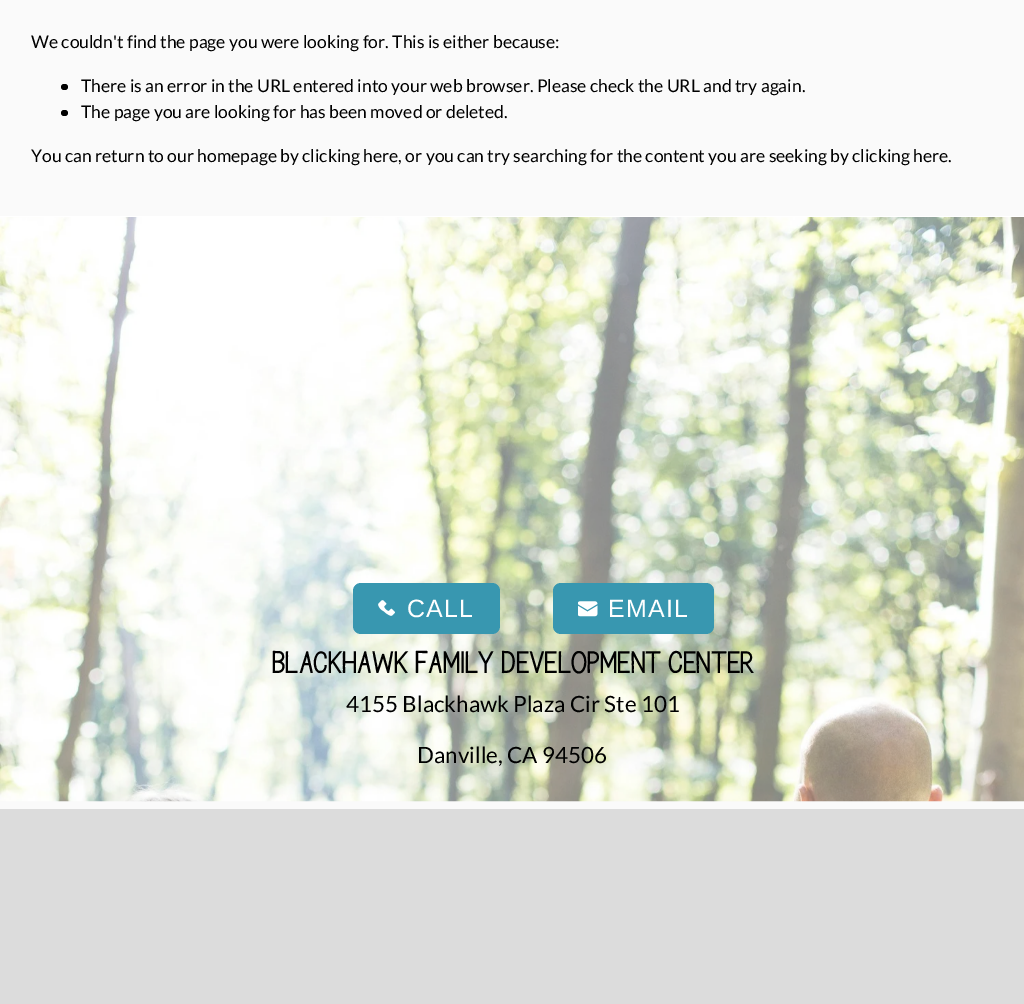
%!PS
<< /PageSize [1024 1004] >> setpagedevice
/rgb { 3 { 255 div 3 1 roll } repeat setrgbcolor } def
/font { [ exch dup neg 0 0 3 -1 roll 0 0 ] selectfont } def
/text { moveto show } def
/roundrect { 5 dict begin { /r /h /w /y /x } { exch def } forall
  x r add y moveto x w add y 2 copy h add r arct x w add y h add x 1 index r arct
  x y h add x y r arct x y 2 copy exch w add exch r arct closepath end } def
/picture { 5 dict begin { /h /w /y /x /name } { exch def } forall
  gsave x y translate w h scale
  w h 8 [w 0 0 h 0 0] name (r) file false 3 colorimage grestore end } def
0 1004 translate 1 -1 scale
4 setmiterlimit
250 250 250 rgb
0 0 1024 1004 rectfill
0 0 0 rgb
61 84 7 6 3 roundrect fill
61 110 7 6 3 roundrect fill
255 255 255 rgb
0 216 1024 1 rectfill
(img_01.rgb) 0 217 1024 585 picture
56 151 176 rgb
353 583 147 51 8 roundrect fill
(img_02.rgb) 378 600 17 16 picture
553 583 161 51 8 roundrect fill
(img_03.rgb) 578 601 20 16 picture
220 220 220 rgb
0 808 1024 196 rectfill
250 250 250 rgb
7.5 setlinewidth
2 setlinecap
-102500 510.5 moveto 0 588.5 rlineto 0 805 moveto 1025 0 rlineto stroke
/Lato-Regular 17.5 font
0 0 0 rgb
(We couldn't find the page you were looking for. This is either because:) 31 48 text
(There is an error in the URL entered into your web browser. Please check the URL and try again.) 81 92 text
(The page you are looking for has been moved or deleted.) 81 118 text
(You can return to our homepage by clicking here, or you can try searching for the content you are seeking by clicking here.) 31 162 text
/LiberationSans-Regular 25 font
255 255 255 rgb
407 617 moveto 1.25 0 (CALL) ashow
608 617 moveto 1.25 0 (EMAIL) ashow
/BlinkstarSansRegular-Regular 24.9 font
0 0 0 rgb
272 673 moveto -0.5 0 (Blackhawk Family Development Center) ashow
/Lato-Regular 22.4 font
(4155 Blackhawk Plaza Cir Ste 101) 346 712 text
(Danville, CA 94506) 417 763 text
showpage
